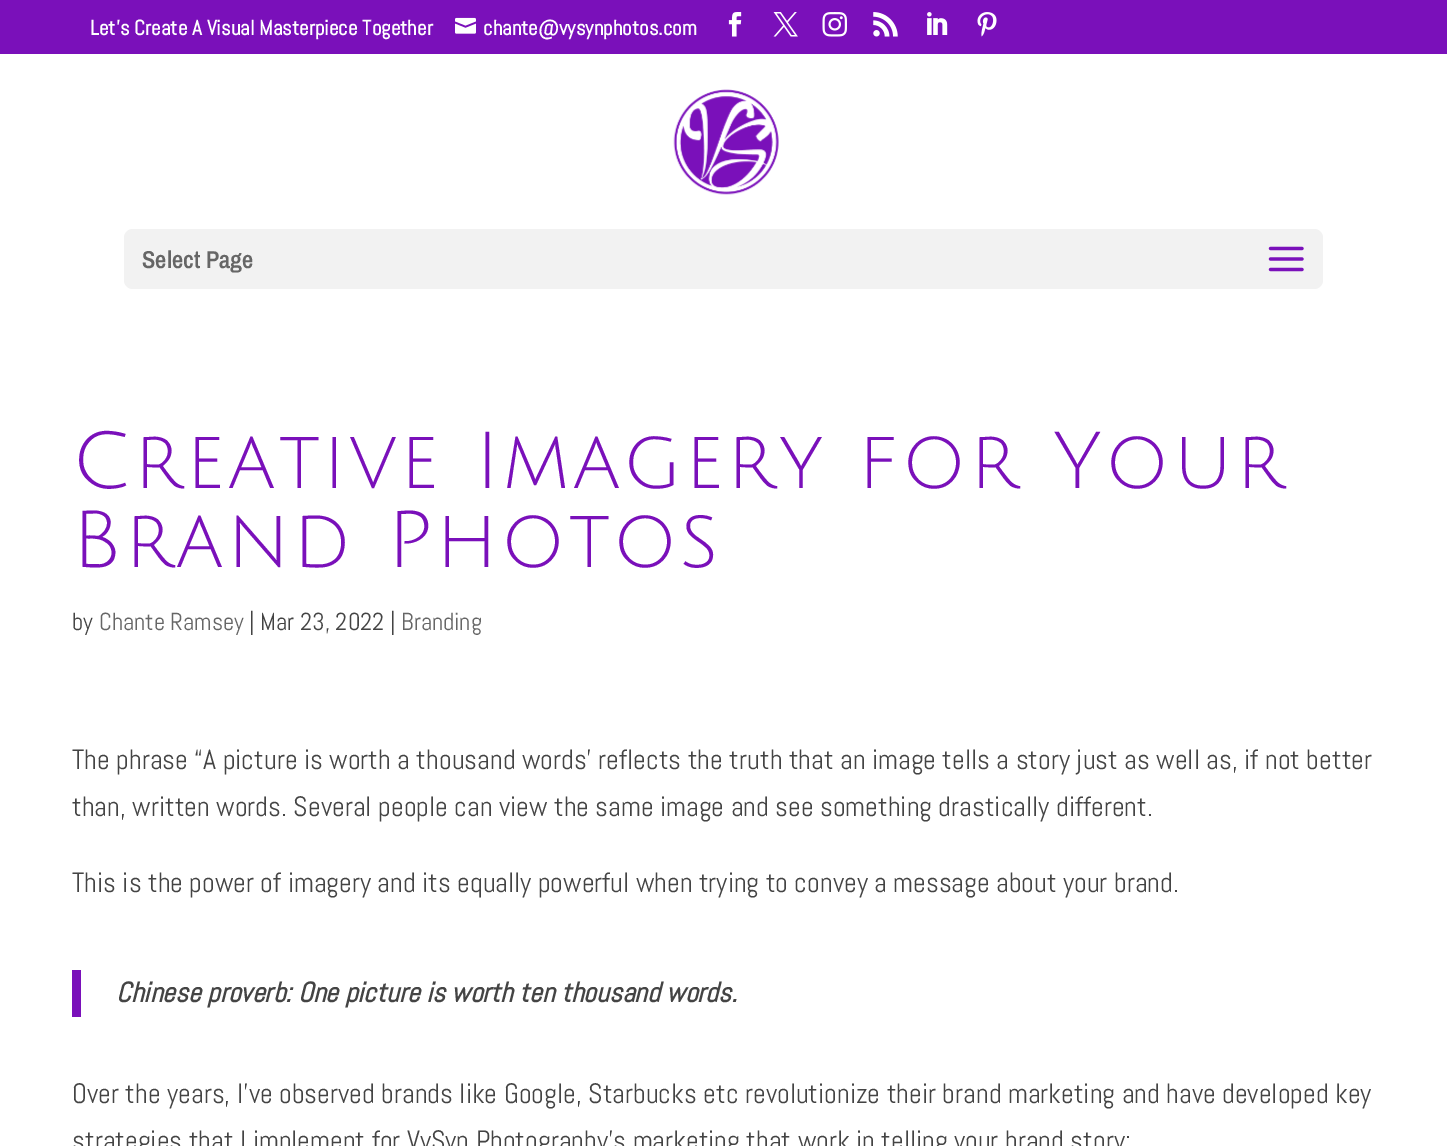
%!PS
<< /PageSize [1447 1146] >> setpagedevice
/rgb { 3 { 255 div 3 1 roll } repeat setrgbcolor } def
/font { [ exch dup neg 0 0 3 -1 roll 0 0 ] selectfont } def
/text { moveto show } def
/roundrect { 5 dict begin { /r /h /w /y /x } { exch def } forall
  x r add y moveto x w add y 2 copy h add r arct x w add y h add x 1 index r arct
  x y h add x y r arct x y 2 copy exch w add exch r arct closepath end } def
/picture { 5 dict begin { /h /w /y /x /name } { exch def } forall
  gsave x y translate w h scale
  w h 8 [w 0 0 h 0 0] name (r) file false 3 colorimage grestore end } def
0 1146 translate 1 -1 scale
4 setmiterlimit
255 255 255 rgb
0 0 1447 1146 rectfill
122 16 186 rgb
0 0 1447 54 rectfill
(img_01.rgb) 455 17 21 17 picture
(img_02.rgb) 728 12 14 25 picture
(img_03.rgb) 773 12 25 25 picture
(img_04.rgb) 822 12 25 25 picture
(img_05.rgb) 873 12 25 25 picture
(img_06.rgb) 927 12 21 23 picture
(img_07.rgb) 977 12 20 25 picture
(img_08.rgb) 673 89 106 106 picture
242 242 242 rgb
124 229 1199 60 9 roundrect fill
(img_09.rgb) 1268 246 36 26 picture
122 16 186 rgb
72 970 9 47 rectfill
/Abel-Bold 21 font
255 255 255 rgb
(Let's Create A Visual Masterpiece Together) 90 35 text
(chante@vysynphotos.com) 483 35 text
/ArchivoNarrow-SemiBold 24.5 font
102 102 102 rgb
(Select Page) 142 268 text
/JuliusSansOne-Regular 78.75 font
122 16 186 rgb
72 488 moveto 3.5 0 (Creative Imagery for Your) ashow
72 567 moveto 3.5 0 (Brand Photos) ashow
/Abel-Regular 24.5 font
68 68 68 rgb
(by) 72 630 text
102 102 102 rgb
(Chante Ramsey) 99 630 text
68 68 68 rgb
(| Mar 23, 2022 |) 249 630 text
102 102 102 rgb
(Branding) 401 630 text
/Abel-Regular 28 font
68 68 68 rgb
(The phrase “A picture is worth a thousand words’ reflects the truth that an image tells a story just as well as, if not better) 72 769 text
(than, written words. Several people can view the same image and see something drastically different.) 72 816 text
(This is the power of imagery and its equally powerful when trying to convey a message about your brand.) 72 892 text
/Abel-BoldItalic 28 font
(Chinese proverb: One picture is worth ten thousand words.) 116 1002 text
/Abel-Regular 28 font
(Over the years, I’ve observed brands like Google, Starbucks etc revolutionize their brand marketing and have developed key) 72 1103 text
(strategies that I implement for VySyn Photography’s marketing that work in telling your brand story:) 72 1150 text
showpage
